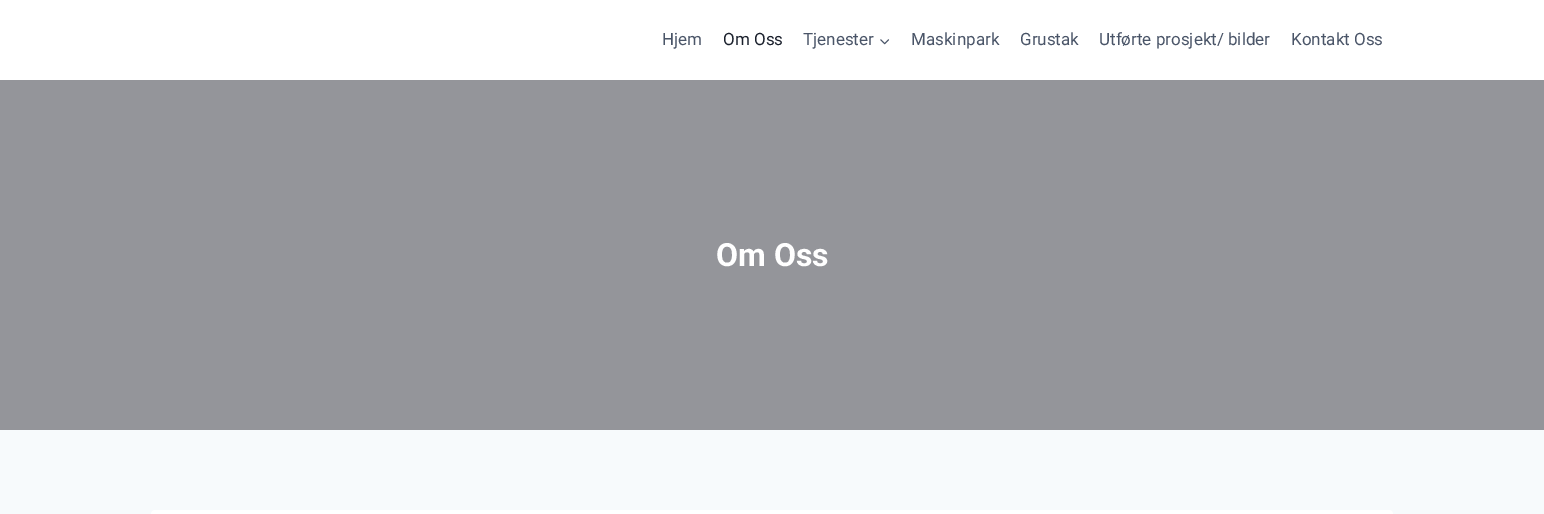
%!PS
<< /PageSize [1544 514] >> setpagedevice
/rgb { 3 { 255 div 3 1 roll } repeat setrgbcolor } def
/font { [ exch dup neg 0 0 3 -1 roll 0 0 ] selectfont } def
/text { moveto show } def
/roundrect { 5 dict begin { /r /h /w /y /x } { exch def } forall
  x r add y moveto x w add y 2 copy h add r arct x w add y h add x 1 index r arct
  x y h add x y r arct x y 2 copy exch w add exch r arct closepath end } def
/picture { 5 dict begin { /h /w /y /x /name } { exch def } forall
  gsave x y translate w h scale
  w h 8 [w 0 0 h 0 0] name (r) file false 3 colorimage grestore end } def
0 514 translate 1 -1 scale
4 setmiterlimit
247 250 252 rgb
0 0 1544 514 rectfill
255 255 255 rgb
0 0 1544 80 rectfill
(img_01.rgb) 880 39 10 6 picture
148 149 154 rgb
0 80 1544 350 rectfill
255 255 255 rgb
151 510 1242 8 4 roundrect fill
/Roboto-Regular 17 font
74 85 104 rgb
(Hjem) 662 45 text
26 32 44 rgb
(Om Oss) 723 45 text
74 85 104 rgb
(Tjenester) 803 45 text
(Maskinpark) 911 45 text
(Grustak) 1020 45 text
(Utførte prosjekt/ bilder) 1099 45 text
(Kontakt Oss) 1291 45 text
/Roboto-Bold 32 font
255 255 255 rgb
(Om Oss) 716 266 text
showpage
